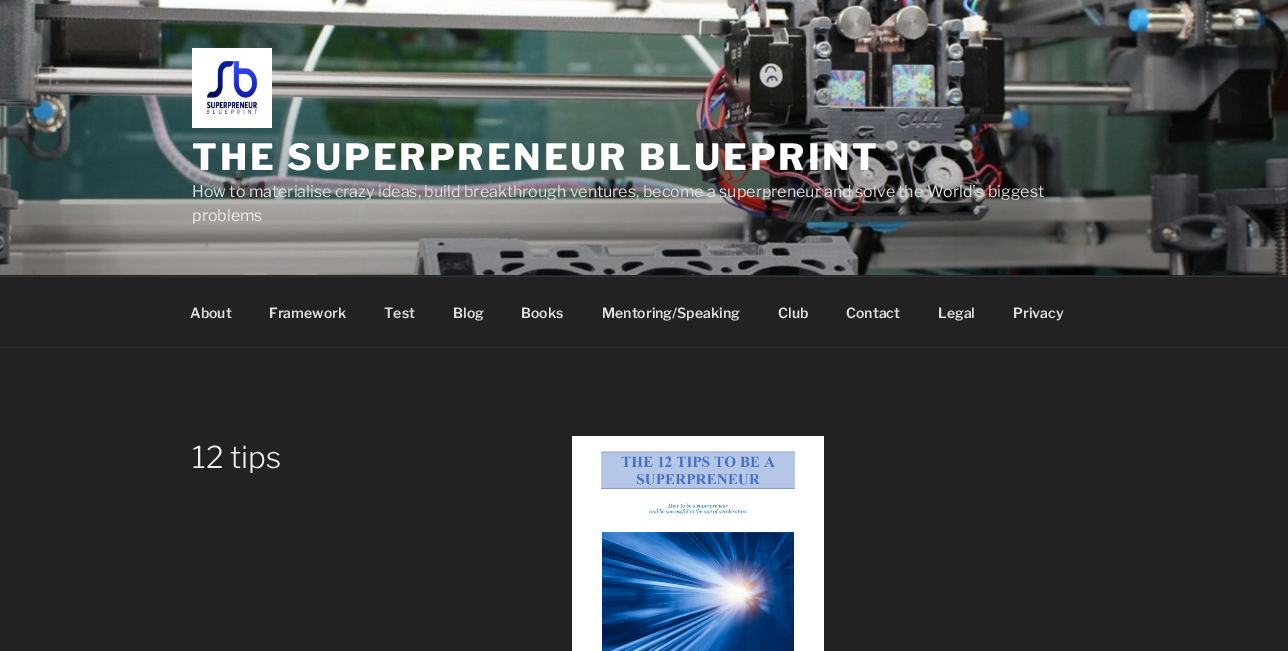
%!PS
<< /PageSize [1288 651] >> setpagedevice
/rgb { 3 { 255 div 3 1 roll } repeat setrgbcolor } def
/font { [ exch dup neg 0 0 3 -1 roll 0 0 ] selectfont } def
/text { moveto show } def
/picture { 5 dict begin { /h /w /y /x /name } { exch def } forall
  gsave x y translate w h scale
  w h 8 [w 0 0 h 0 0] name (r) file false 3 colorimage grestore end } def
0 651 translate 1 -1 scale
4 setmiterlimit
34 34 34 rgb
0 0 1288 651 rectfill
38 38 38 rgb
0 275 1288 1 rectfill
(img_01.rgb) 0 0 1288 275 picture
(img_02.rgb) 192 48 80 80 picture
51 51 51 rgb
0 276 1288 1 rectfill
0 347 1288 1 rectfill
(img_03.rgb) 572 436 252 215 picture
/LibreFranklin-ExtraBold 36 font
255 255 255 rgb
192 170 moveto 2.9 0 (THE SUPERPRENEUR BLUEPRINT) ashow
/LibreFranklin-Regular 16 font
222 222 222 rgb
(How to materialise crazy ideas, build breakthrough ventures, become a superpreneur and solve the World's biggest) 192 197 text
238 238 238 rgb
(problems) 192 221 text
/LibreFranklin-SemiBold 14 font
222 222 222 rgb
(About) 190 318 text
(Framework) 269 318 text
(Test) 384 318 text
(Blog) 453 318 text
(Books) 521 318 text
(Mentoring/Speaking) 602 318 text
(Club) 778 318 text
(Contact) 846 318 text
(Legal) 938 318 text
(Privacy) 1013 318 text
/LibreFranklin-Light 30 font
238 238 238 rgb
(12 tips) 192 468 text
showpage
